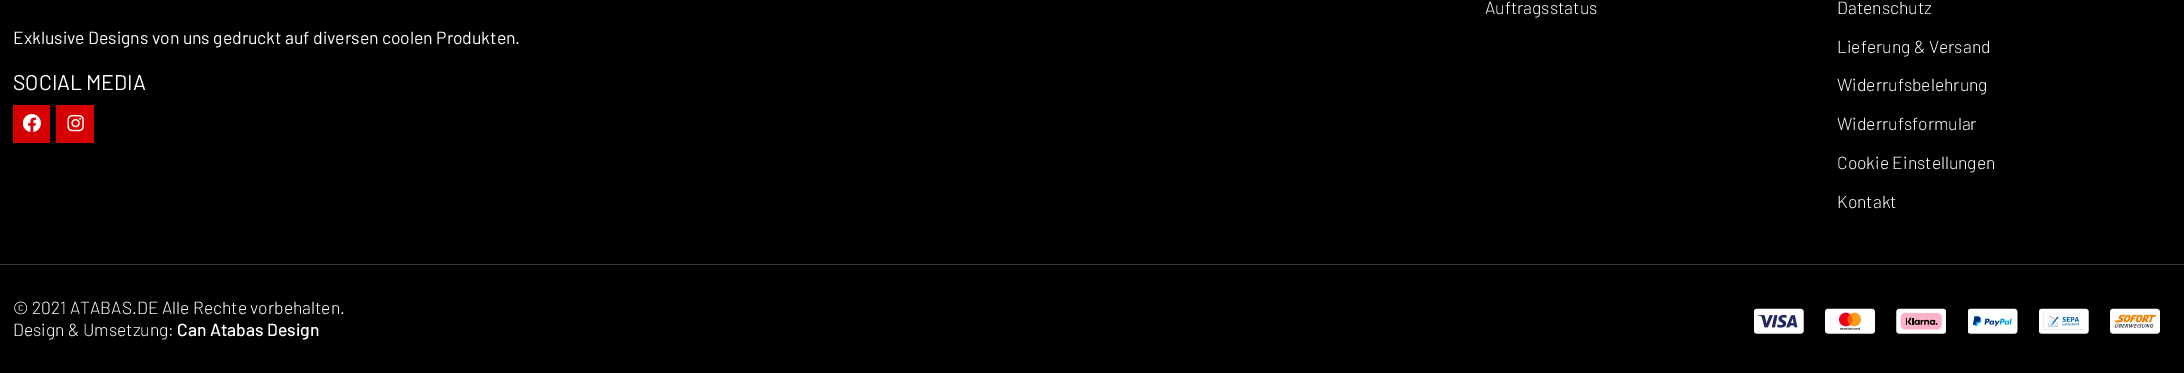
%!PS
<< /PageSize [2184 373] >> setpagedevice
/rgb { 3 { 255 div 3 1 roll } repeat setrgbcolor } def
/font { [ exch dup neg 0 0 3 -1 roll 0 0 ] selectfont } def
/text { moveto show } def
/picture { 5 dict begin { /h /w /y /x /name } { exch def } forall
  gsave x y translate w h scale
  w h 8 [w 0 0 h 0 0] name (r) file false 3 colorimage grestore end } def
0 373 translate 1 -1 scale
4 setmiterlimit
0 0 0 rgb
0 0 2184 373 rectfill
214 0 0 rgb
13 105 37 38 rectfill
(img_01.rgb) 23 114 18 18 picture
56 105 38 38 rectfill
(img_02.rgb) 67 115 17 17 picture
54 54 54 rgb
0 264 2184 1 rectfill
(img_03.rgb) 1754 308 50 26 picture
(img_04.rgb) 1825 308 50 26 picture
(img_05.rgb) 1896 308 50 26 picture
(img_06.rgb) 1968 308 50 26 picture
(img_07.rgb) 2039 308 50 26 picture
(img_08.rgb) 2110 308 50 26 picture
/Barlow-Regular 17.5 font
255 255 255 rgb
(Exklusive Designs von uns gedruckt auf diversen coolen Produkten.) 13 44 text
/Barlow-Regular 21.25 font
(SOCIAL MEDIA) 13 90 text
/Barlow-Light 17.5 font
(Auftragsstatus) 1485 14 text
(Datenschutz) 1837 14 text
(Lieferung & Versand) 1837 53 text
(Widerrufsbelehrung) 1837 91 text
(Widerrufsformular) 1837 130 text
(Cookie Einstellungen) 1837 169 text
(Kontakt) 1837 208 text
(© 2021 ATABAS.DE Alle Rechte vorbehalten.) 13 314 text
(Design & Umsetzung:) 13 336 text
/Barlow-Medium 17.5 font
(Can Atabas Design) 177 336 text
showpage
